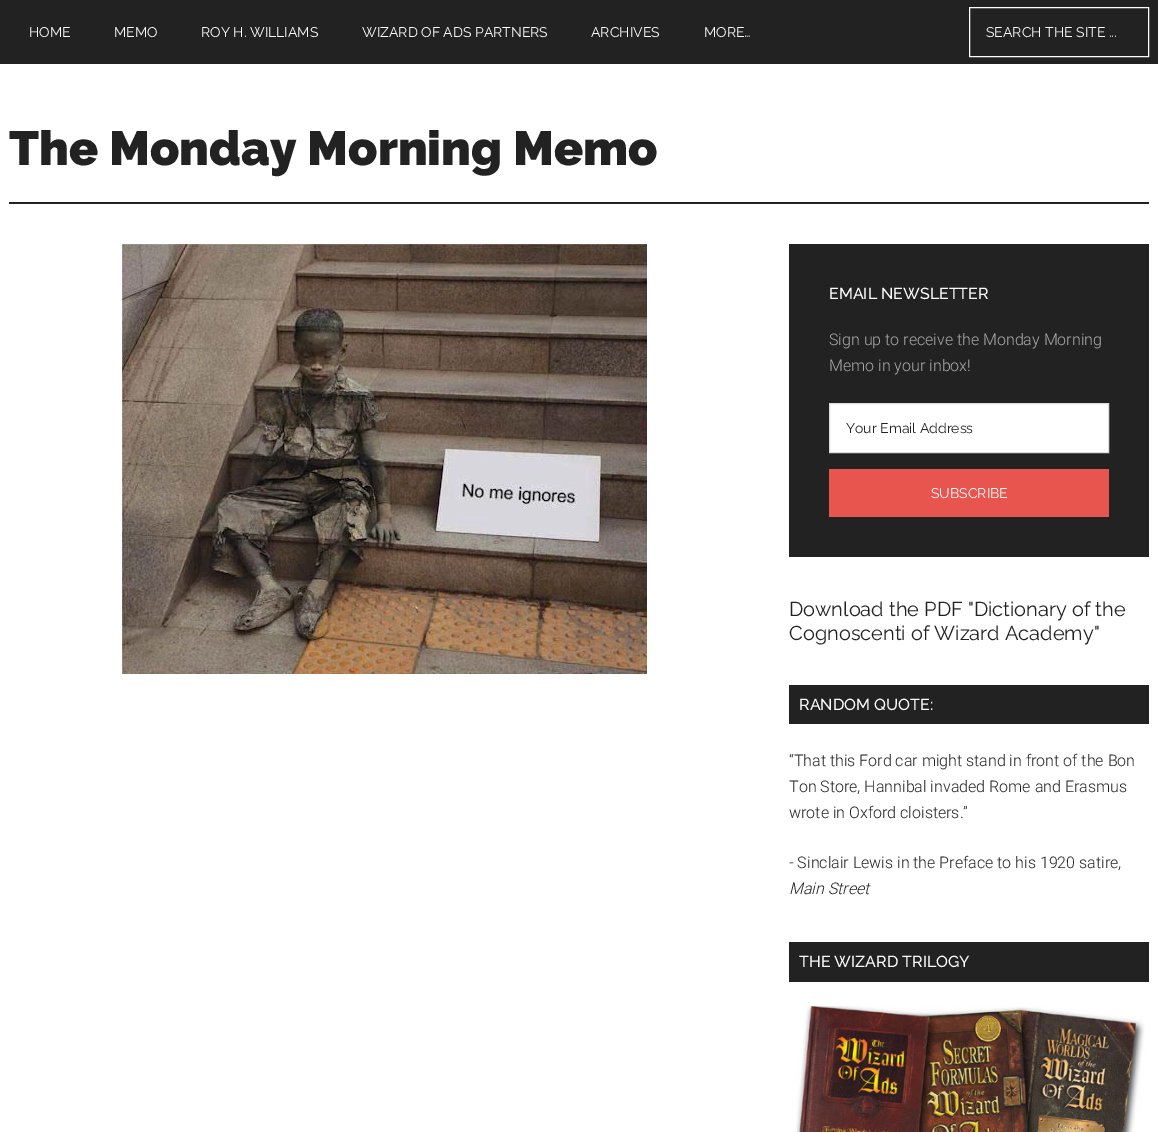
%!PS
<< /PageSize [1158 1132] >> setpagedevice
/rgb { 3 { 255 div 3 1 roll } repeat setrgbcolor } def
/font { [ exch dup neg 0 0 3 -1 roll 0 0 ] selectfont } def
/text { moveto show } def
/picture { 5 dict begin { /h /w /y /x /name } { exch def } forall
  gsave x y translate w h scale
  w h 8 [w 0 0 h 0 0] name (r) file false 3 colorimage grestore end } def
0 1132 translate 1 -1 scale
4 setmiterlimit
255 255 255 rgb
0 0 1158 1132 rectfill
34 34 34 rgb
0 0 1158 64 rectfill
255 255 255 rgb
969.5 7.5 179 49 rectstroke
34 34 34 rgb
9 202 1140 2 rectfill
(img_01.rgb) 122 244 525 430 picture
789 244 360 313 rectfill
255 255 255 rgb
829.5 403.5 moveto 279 0 rlineto 0 49 rlineto -279 0 rlineto closepath gsave fill grestore
221 221 221 rgb
stroke
232 85 78 rgb
829 469 280 48 rectfill
34 34 34 rgb
789 685 360 39 rectfill
789 942 360 40 rectfill
(img_02.rgb) 795 1006 350 126 picture
/Raleway-Regular 14 font
255 255 255 rgb
(HOME) 29 37 text
(MEMO) 114 37 text
(ROY H. WILLIAMS) 201 37 text
(WIZARD OF ADS PARTNERS) 362 37 text
(ARCHIVES) 591 37 text
(MORE…) 704 37 text
(SEARCH THE SITE ...) 986 37 text
/Raleway-Black 48 font
34 34 34 rgb
(The Monday Morning Memo) 9 165 text
/Raleway-Medium 16 font
255 255 255 rgb
(EMAIL NEWSLETTER) 829 299 text
/Roboto-Light 16 font
170 170 170 rgb
(Sign up to receive the Monday Morning) 829 345 text
(Memo in your inbox!) 829 371 text
/Raleway-Regular 14 font
34 34 34 rgb
(Your Email Address) 846 433 text
255 255 255 rgb
(SUBSCRIBE) 931 498 text
/Raleway-Regular 20 font
34 34 34 rgb
(Download the PDF "Dictionary of the) 789 616 text
(Cognoscenti of Wizard Academy") 789 640 text
/Raleway-Medium 16 font
255 255 255 rgb
(RANDOM QUOTE:) 799 710 text
/Roboto-Light 16 font
34 34 34 rgb
(“That this Ford car might stand in front of the Bon) 789 766 text
(Ton Store, Hannibal invaded Rome and Erasmus) 789 792 text
(wrote in Oxford cloisters.”) 789 818 text
(- Sinclair Lewis in the Preface to his 1920 satire,) 789 868 text
/Roboto-LightItalic 16 font
(Main Street) 789 894 text
/Raleway-Medium 16 font
255 255 255 rgb
(THE WIZARD TRILOGY) 799 967 text
showpage
